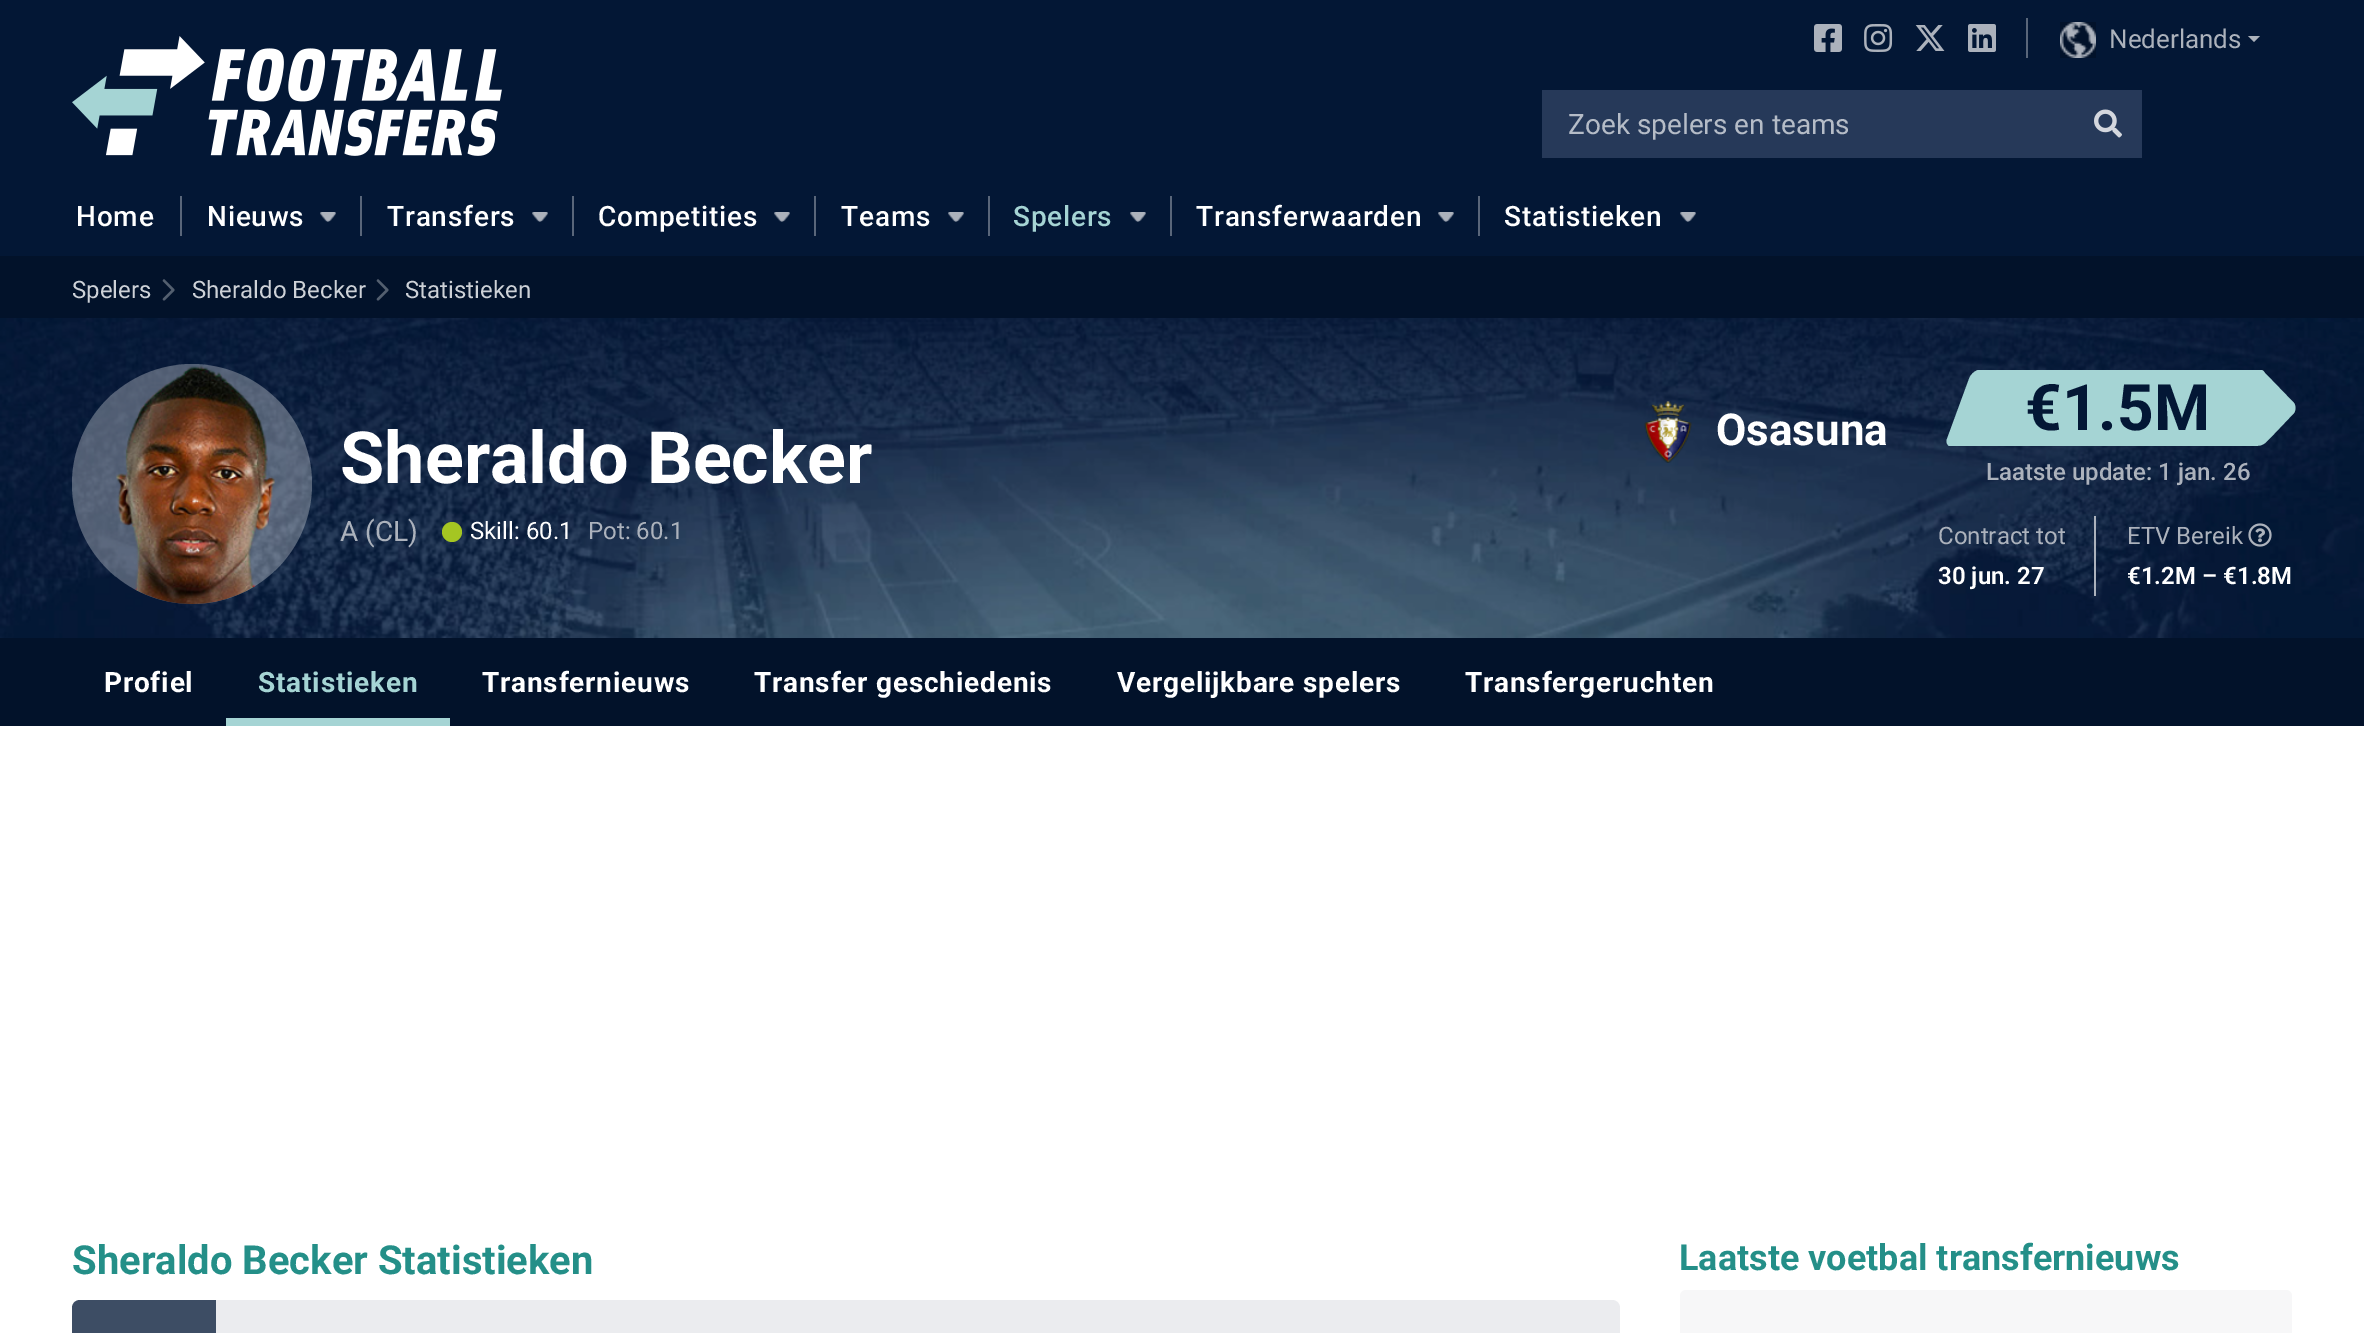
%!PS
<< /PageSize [2364 1333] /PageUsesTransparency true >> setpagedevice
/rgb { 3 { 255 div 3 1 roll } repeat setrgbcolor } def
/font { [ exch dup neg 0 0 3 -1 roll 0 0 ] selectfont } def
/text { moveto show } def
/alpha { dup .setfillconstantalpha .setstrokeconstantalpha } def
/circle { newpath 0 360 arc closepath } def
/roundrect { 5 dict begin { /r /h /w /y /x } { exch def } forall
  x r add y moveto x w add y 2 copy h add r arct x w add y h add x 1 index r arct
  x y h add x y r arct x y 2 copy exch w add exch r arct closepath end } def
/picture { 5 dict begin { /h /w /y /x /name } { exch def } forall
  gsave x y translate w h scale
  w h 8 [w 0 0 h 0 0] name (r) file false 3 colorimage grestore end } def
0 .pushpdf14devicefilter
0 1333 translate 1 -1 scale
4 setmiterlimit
255 255 255 rgb
0 0 2364 1333 rectfill
3 23 53 rgb
0 0 2364 256 rectfill
(img_01.rgb) 1814 24 28 28 picture
(img_02.rgb) 1864 24 29 28 picture
(img_03.rgb) 1915 25 30 26 picture
(img_04.rgb) 1968 24 28 28 picture
89 102 122 rgb
2026 18 2 40 rectfill
(img_05.rgb) 2060 22 36 36 picture
172 178 188 rgb
2248 36 moveto 12 0 rlineto -6 6 rlineto closepath fill
(img_06.rgb) 72 36 430 120 picture
38 57 89 rgb
1542 90 600 68 rectfill
(img_07.rgb) 2094 109 28 29 picture
89 102 122 rgb
180 196 2 40 rectfill
360 196 2 40 rectfill
(img_08.rgb) 320 212 16 10 picture
572 196 2 40 rectfill
(img_08.rgb) 532 212 16 10 picture
814 196 2 40 rectfill
(img_08.rgb) 774 212 16 10 picture
988 196 2 40 rectfill
(img_08.rgb) 948 212 16 10 picture
1170 196 2 40 rectfill
(img_08.rgb) 1130 212 16 10 picture
1478 196 2 40 rectfill
(img_08.rgb) 1438 212 16 10 picture
(img_08.rgb) 1680 212 16 10 picture
2 18 42 rgb
0 256 2364 62 rectfill
(img_09.rgb) 162 279 13 22 picture
(img_09.rgb) 376 279 13 22 picture
(img_10.rgb) 0 318 2364 320 picture
0.3 alpha
255 255 255 rgb
192 484 120 circle fill
1 alpha
(img_11.rgb) 116 365 159 239 picture
165 198 34 rgb
452 532 10 circle fill
(img_12.rgb) 1644 401 48 62 picture
165 212 212 rgb
1988 370 260 76 rectfill
gsave
1946 370 42 76 rectclip
1954 448 moveto 34 0 rlineto 0 -79 rlineto -5 0 rlineto -6 0 -12 4 -14 10 rcurveto -22 60 rlineto -2 4 2 9 7 9 rcurveto closepath fill
grestore
gsave
2246 370 50 76 rectclip
2294 413 moveto -19 20 rlineto -13 13 -10 13 -27 13 rcurveto 0 -77 rlineto 10 0 rlineto 3 0 5 1 7 4 rcurveto 29 30 rlineto 2 3 2 7 0 10 rcurveto closepath fill
grestore
172 178 188 rgb
2094 516 2 80 rectfill
(img_13.rgb) 2248 523 24 24 picture
2 18 42 rgb
0 638 2364 88 rectfill
165 212 212 rgb
226 718 224 8 rectfill
61 77 100 rgb
80 1300 moveto 136 0 rlineto 0 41 rlineto -136 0 rlineto -4.5 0 -8 -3.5 -8 -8 rcurveto 0 -25 rlineto 0 -4.5 3.5 -8 8 -8 rcurveto closepath fill
235 236 239 rgb
216 1300 1108 33 rectfill
1324 1300 moveto 288 0 rlineto 4.5 0 8 3.5 8 8 rcurveto 0 25 rlineto 0 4.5 -3.5 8 -8 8 rcurveto -288 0 rlineto closepath fill
247 247 248 rgb
1680 1290 612 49 6 roundrect fill
/Roboto-Regular 26 font
172 178 188 rgb
(Nederlands) 2109 48 text
/Roboto-Regular 28 font
181 188 199 rgb
(Zoek spelers en teams) 1568 134 text
/Roboto-Medium 28 font
255 255 255 rgb
76 226 moveto 0.8 0 (Home) ashow
207 226 moveto 0.8 0 (Nieuws) ashow
387 226 moveto 0.8 0 (Transfers) ashow
598 226 moveto 0.8 0 (Competities) ashow
841 226 moveto 0.8 0 (Teams) ashow
165 212 212 rgb
1013 226 moveto 0.8 0 (Spelers) ashow
255 255 255 rgb
1196 226 moveto 0.8 0 (Transferwaarden) ashow
1504 226 moveto 0.8 0 (Statistieken) ashow
/Roboto-Regular 24 font
205 209 215 rgb
(Spelers) 72 298 text
(Sheraldo Becker) 192 298 text
(Statistieken) 405 298 text
/Roboto-Bold 72 font
255 255 255 rgb
(Sheraldo Becker) 340 483 text
/Roboto-Regular 28 font
172 178 188 rgb
(A \(CL\)) 340 541 text
/Roboto-Regular 24 font
255 255 255 rgb
(Skill: 60.1) 470 539 text
172 178 188 rgb
(Pot: 60.1) 588 539 text
/Roboto-Bold 44 font
255 255 255 rgb
(Osasuna) 1716 445 text
/Roboto-Bold 64 font
3 23 53 rgb
(€1.5M) 2025 430 text
/Roboto-Medium 24 font
172 178 188 rgb
(Laatste update: 1 jan. 26) 1986 480 text
/Roboto-Regular 24 font
(Contract tot) 1938 544 text
/Roboto-SemiBold 24 font
255 255 255 rgb
(30 jun. 27) 1938 584 text
/Roboto-Regular 24 font
172 178 188 rgb
(ETV Bereik) 2127 544 text
/Roboto-SemiBold 24 font
255 255 255 rgb
(€1.2M – €1.8M) 2127 584 text
/Roboto-Bold 28 font
104 692 moveto 0.8 0 (Profiel) ashow
165 212 212 rgb
258 692 moveto 0.8 0 (Statistieken) ashow
255 255 255 rgb
482 692 moveto 0.8 0 (Transfernieuws) ashow
754 692 moveto 0.8 0 (Transfer geschiedenis) ashow
1117 692 moveto 0.8 0 (Vergelijkbare spelers) ashow
1465 692 moveto 0.8 0 (Transfergeruchten) ashow
/Roboto-Bold 40 font
36 143 136 rgb
(Sheraldo Becker Statistieken) 72 1274 text
/Roboto-Bold 36 font
(Laatste voetbal transfernieuws) 1679 1270 text
.poppdf14devicefilter showpage
